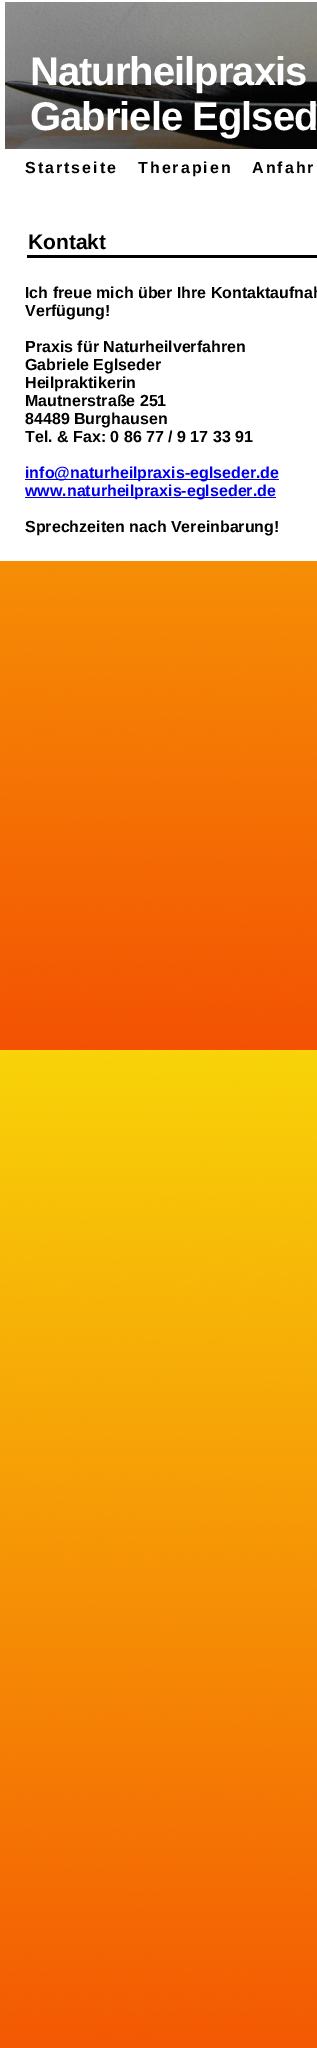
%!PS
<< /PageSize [317 2048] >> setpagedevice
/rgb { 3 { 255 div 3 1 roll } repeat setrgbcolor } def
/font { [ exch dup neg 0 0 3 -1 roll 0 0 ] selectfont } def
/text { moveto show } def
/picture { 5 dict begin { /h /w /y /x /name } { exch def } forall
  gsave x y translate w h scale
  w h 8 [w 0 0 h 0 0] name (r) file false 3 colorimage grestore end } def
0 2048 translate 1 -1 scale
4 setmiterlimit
255 255 255 rgb
0 0 317 2048 rectfill
(img_01.rgb) 0 561 317 1487 picture
(img_02.rgb) 5 2 312 147 picture
0 0 0 rgb
27 255 290 3 rectfill
0 0 238 rgb
25 479 254 1 rectfill
25 497 251 1 rectfill
/LiberationSans-Bold 40 font
255 255 255 rgb
30 85 moveto -1 0 (Naturheilpraxis) ashow
30 130 moveto -1 0 (Gabriele Eglsed) ashow
/LiberationSans-Bold 16 font
0 0 0 rgb
25 173 moveto 2 0 (Startseite) ashow
138 173 moveto 2 0 (Therapien) ashow
252 173 moveto 2 0 (Anfahr) ashow
/LiberationSans-Bold 21 font
(Kontakt) 28 249 text
/LiberationSans-Bold 16 font
(Ich freue mich über Ihre Kontaktaufnah) 25 298 text
(Verfügung!) 25 316 text
(Praxis für Naturheilverfahren) 25 352 text
(Gabriele Eglseder) 25 370 text
(Heilpraktikerin) 25 388 text
(Mautnerstraße 251) 25 406 text
(84489 Burghausen) 25 424 text
(Tel. & Fax: 0 86 77 / 9 17 33 91) 25 442 text
0 0 238 rgb
(info@naturheilpraxis-eglseder.de) 25 478 text
(www.naturheilpraxis-eglseder.de) 25 496 text
0 0 0 rgb
(Sprechzeiten nach Vereinbarung!) 25 532 text
showpage
